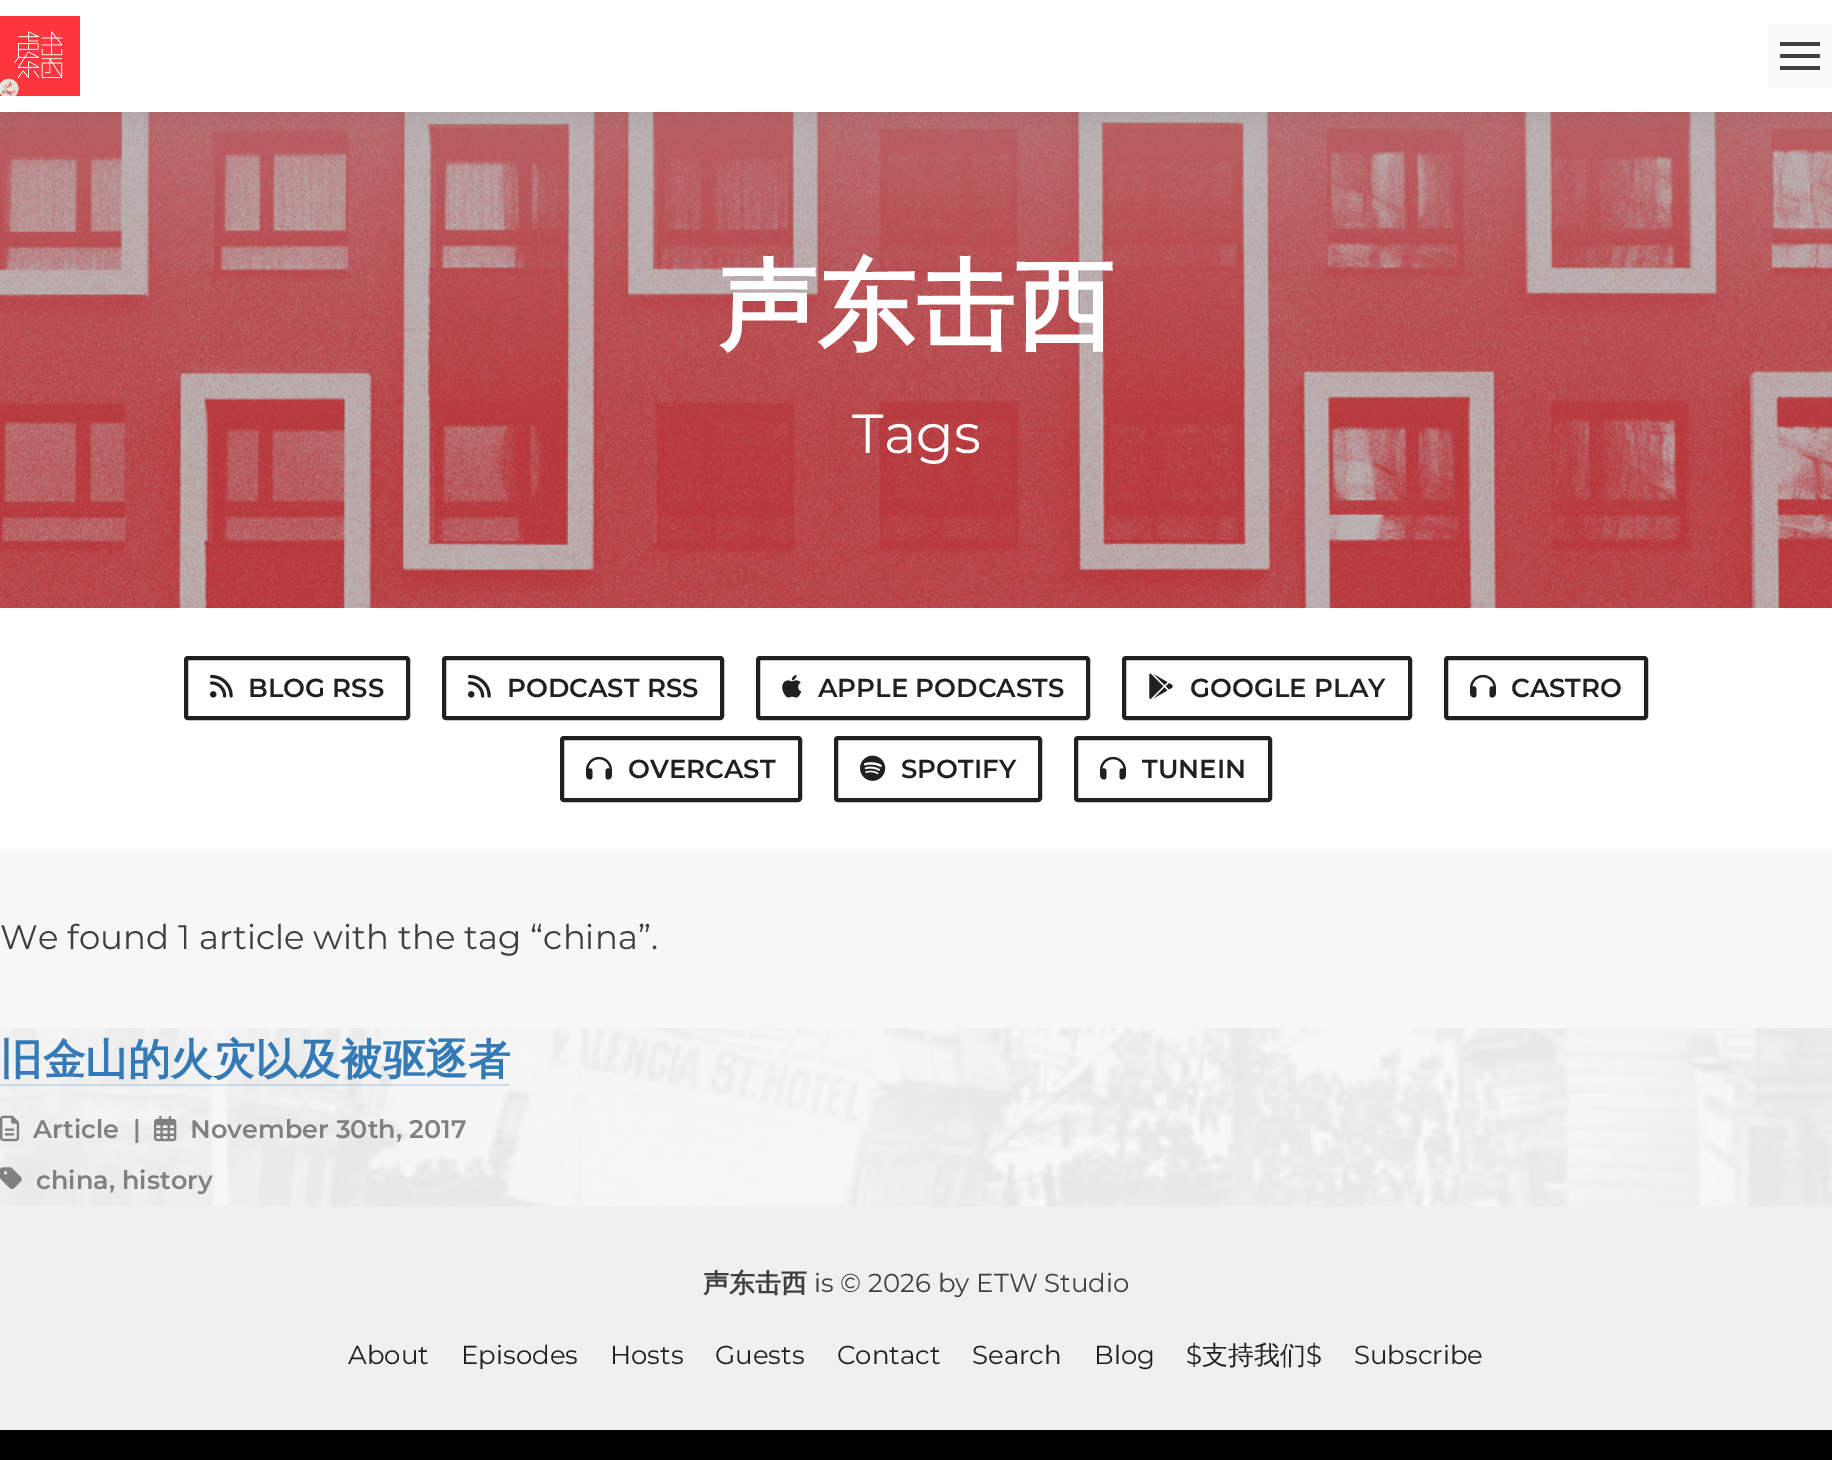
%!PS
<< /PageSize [1832 1460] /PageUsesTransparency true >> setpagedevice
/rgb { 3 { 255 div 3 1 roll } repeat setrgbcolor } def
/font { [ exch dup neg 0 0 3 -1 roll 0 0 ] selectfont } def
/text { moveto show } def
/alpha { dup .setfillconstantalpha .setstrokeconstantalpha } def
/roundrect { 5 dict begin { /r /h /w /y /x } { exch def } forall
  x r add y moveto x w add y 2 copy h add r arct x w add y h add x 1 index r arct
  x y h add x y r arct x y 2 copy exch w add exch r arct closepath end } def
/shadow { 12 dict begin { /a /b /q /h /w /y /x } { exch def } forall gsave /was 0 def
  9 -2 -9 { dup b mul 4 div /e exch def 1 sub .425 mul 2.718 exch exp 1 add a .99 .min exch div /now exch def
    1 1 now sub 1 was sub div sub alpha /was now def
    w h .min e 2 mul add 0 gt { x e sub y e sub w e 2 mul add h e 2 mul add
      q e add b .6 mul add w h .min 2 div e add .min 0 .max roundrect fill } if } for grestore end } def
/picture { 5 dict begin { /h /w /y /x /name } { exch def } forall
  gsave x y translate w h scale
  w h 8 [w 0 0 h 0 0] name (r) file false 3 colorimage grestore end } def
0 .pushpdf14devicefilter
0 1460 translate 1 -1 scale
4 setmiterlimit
247 247 247 rgb
0 0 1832 1460 rectfill
(img_02.rgb) 0 112 1832 496 picture
0 0 0 rgb
0 0 1832 112 0 16 0.1 shadow
255 255 255 rgb
0 0 1832 112 rectfill
(img_01.rgb) 0 16 80 80 picture
250 250 250 rgb
1768 24 64 64 rectfill
64 64 64 rgb
1780 42 40 4 rectfill
1780 54 40 4 rectfill
1780 66 40 4 rectfill
255 255 255 rgb
0 608 1832 242 rectfill
32 32 32 rgb
4 setlinewidth
186 658 222 60 2 roundrect stroke
(img_03.rgb) 210 674 23 24 picture
444 658 278 60 2 roundrect stroke
(img_03.rgb) 468 674 23 24 picture
758 658 330 60 2 roundrect stroke
(img_04.rgb) 782 674 20 24 picture
1124 658 286 60 2 roundrect stroke
(img_05.rgb) 1149 673 24 27 picture
1446 658 200 60 2 roundrect stroke
(img_06.rgb) 1470 674 26 24 picture
562 738 238 62 2 roundrect stroke
(img_06.rgb) 586 756 26 24 picture
836 738 204 62 2 roundrect stroke
(img_07.rgb) 860 755 26 26 picture
1076 738 194 62 2 roundrect stroke
(img_06.rgb) 1100 756 26 24 picture
250 250 250 rgb
0 1028 1832 178 rectfill
(img_08.rgb) 0 1028 1832 178 picture
0.2 alpha
51 122 183 rgb
0 1084 510 2 rectfill
1 alpha
(img_09.rgb) 0 1115 20 27 picture
(img_10.rgb) 154 1115 23 27 picture
(img_11.rgb) 0 1167 22 22 picture
240 240 240 rgb
0 1206 1832 224 rectfill
0 0 0 rgb
0 1430 1832 30 rectfill
/WenQuanYiZenHei-Bold 99 font
255 255 255 rgb
(声东击西) 718 340 text
/Montserrat-Regular 55 font
(Tags) 852 453 text
/Montserrat-SemiBold 26 font
32 32 32 rgb
(BLOG RSS) 248 697 text
(PODCAST RSS) 507 697 text
(APPLE PODCASTS) 818 697 text
(GOOGLE PLAY) 1190 697 text
(CASTRO) 1511 697 text
(OVERCAST) 628 778 text
(SPOTIFY) 901 778 text
(TUNEIN) 1142 778 text
/Montserrat-Regular 34 font
64 64 64 rgb
(We found 1 article with the tag “china”.) 0 949 text
/WenQuanYiZenHei-Bold 42.5 font
51 122 183 rgb
(旧金山的火灾以及被驱逐者) 0 1074 text
/Montserrat-SemiBold 25.5 font
128 128 128 rgb
(Article  |) 33 1138 text
(November 30th, 2017) 190 1138 text
(china, history) 36 1189 text
/WenQuanYiZenHei-Bold 26 font
64 64 64 rgb
(声东击西) 703 1292 text
/Montserrat-Regular 26 font
(is © 2026 by ETW Studio) 814 1292 text
32 32 32 rgb
(About) 348 1364 text
(Episodes) 461 1364 text
(Hosts) 610 1364 text
(Guests) 715 1364 text
(Contact) 837 1364 text
(Search) 972 1364 text
(Blog) 1094 1364 text
($) 1186 1364 text
/WenQuanYiZenHei-Medium 26 font
(支持我们) 1202 1364 text
/Montserrat-Regular 26 font
($) 1306 1364 text
(Subscribe) 1354 1364 text
.poppdf14devicefilter showpage
